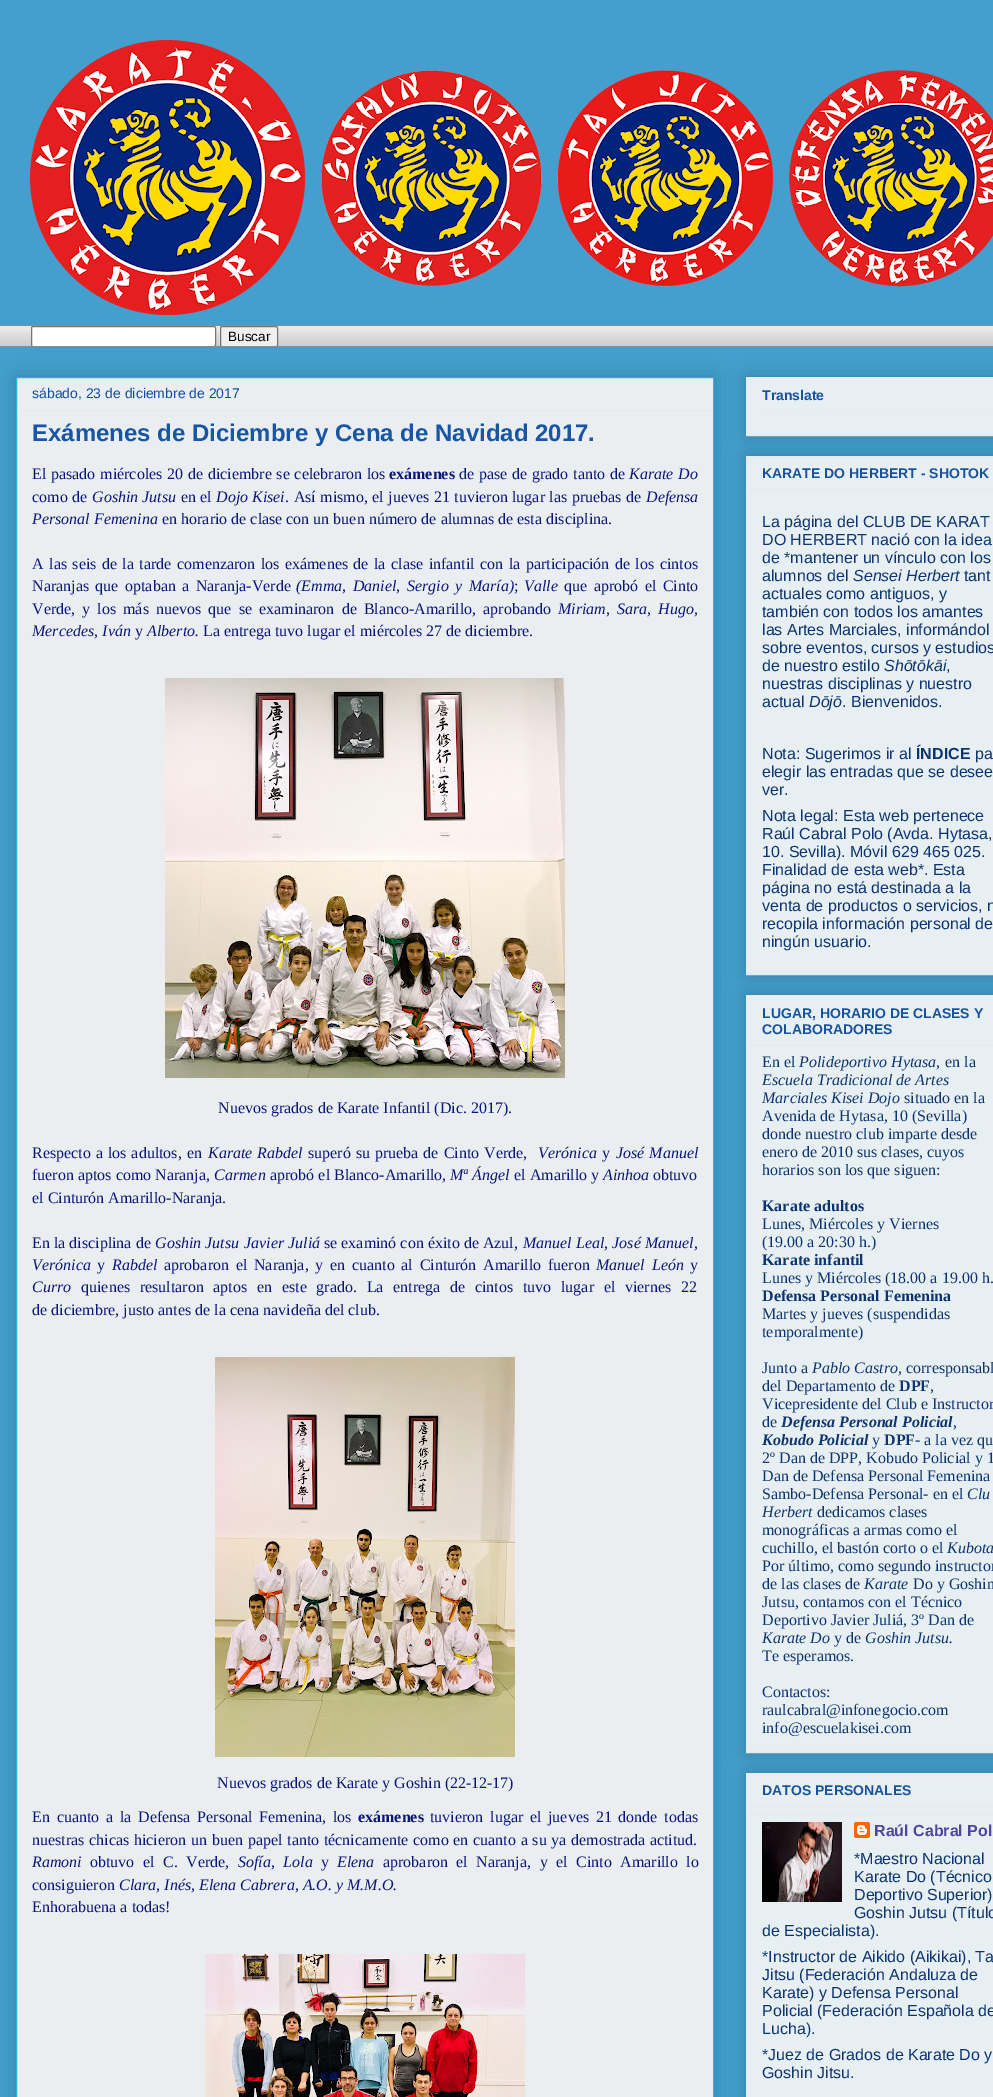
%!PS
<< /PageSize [993 2097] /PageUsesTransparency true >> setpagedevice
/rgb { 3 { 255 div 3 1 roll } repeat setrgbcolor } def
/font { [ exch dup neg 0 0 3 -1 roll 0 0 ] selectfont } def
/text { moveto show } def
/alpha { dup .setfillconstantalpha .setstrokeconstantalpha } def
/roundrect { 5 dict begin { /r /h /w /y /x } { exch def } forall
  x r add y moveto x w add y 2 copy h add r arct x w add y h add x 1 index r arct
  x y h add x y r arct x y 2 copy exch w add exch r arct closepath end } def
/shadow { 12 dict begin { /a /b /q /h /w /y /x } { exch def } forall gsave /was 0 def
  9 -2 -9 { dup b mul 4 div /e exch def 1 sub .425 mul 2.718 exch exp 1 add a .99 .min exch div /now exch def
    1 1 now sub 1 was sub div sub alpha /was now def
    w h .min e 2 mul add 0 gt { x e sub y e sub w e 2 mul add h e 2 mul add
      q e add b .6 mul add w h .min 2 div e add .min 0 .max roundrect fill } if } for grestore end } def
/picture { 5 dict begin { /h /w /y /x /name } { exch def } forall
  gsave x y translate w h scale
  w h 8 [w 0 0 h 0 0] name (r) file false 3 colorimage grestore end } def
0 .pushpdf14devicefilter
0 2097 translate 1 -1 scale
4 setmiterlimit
68 159 206 rgb
0 0 993 2097 rectfill
(img_01.rgb) 29 40 964 275 picture
233 233 233 rgb
0 326 993 20 rectfill
(img_02.rgb) 0 331 993 15 picture
140 140 140 rgb
0 325 993 1 rectfill
255 255 255 rgb
31.5 326.5 184 20 1.5 roundrect gsave fill grestore
118 118 118 rgb
stroke
239 239 239 rgb
220.5 326.5 57 20 1.5 roundrect gsave fill grestore
118 118 118 rgb
stroke
140 140 140 rgb
0 346 993 1 rectfill
0 0 0 rgb
16 377 698 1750 0 10 0.2 shadow
234 238 240 rgb
16.5 377.5 moveto 697 0 rlineto 0 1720 rlineto -697 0 rlineto closepath gsave fill grestore
39 184 214 rgb
stroke
233 233 233 rgb
17 410 696 1 rectfill
(img_03.rgb) 165 678 400 400 picture
(img_04.rgb) 215 1357 300 400 picture
(img_05.rgb) 205 1954 320 143 picture
0 0 0 rgb
746 377 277 59 0 10 0.2 shadow
232 239 242 rgb
746.5 377.5 moveto 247 0 rlineto 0 58 rlineto -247 0 rlineto closepath gsave fill grestore
233 233 233 rgb
stroke
762 411 231 1 rectfill
0 0 0 rgb
746 456 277 519 0 10 0.2 shadow
232 239 242 rgb
746.5 456.5 moveto 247 0 rlineto 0 518 rlineto -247 0 rlineto closepath gsave fill grestore
233 233 233 rgb
stroke
747 489 246 1 rectfill
0 0 0 rgb
746 995 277 758 0 10 0.2 shadow
232 239 242 rgb
746.5 995.5 moveto 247 0 rlineto 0 757 rlineto -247 0 rlineto closepath gsave fill grestore
233 233 233 rgb
stroke
747 1045 246 1 rectfill
0 0 0 rgb
746 1773 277 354 0 10 0.2 shadow
232 239 242 rgb
746.5 1773.5 moveto 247 0 rlineto 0 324 rlineto -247 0 rlineto closepath gsave fill grestore
233 233 233 rgb
stroke
747 1806 246 1 rectfill
747 1814 246 1 rectfill
(img_06.rgb) 762 1822 80 80 picture
(img_07.rgb) 854 1822 16 16 picture
/LiberationSans-Regular 13.5 font
0 0 0 rgb
(Buscar) 228 341 text
/LiberationSans-Regular 14 font
17 78 161 rgb
(sábado, 23 de diciembre de 2017) 32 398 text
/LiberationSans-Bold 24 font
24 86 165 rgb
(Exámenes de Diciembre y Cena de Navidad 2017.) 32 441 text
/LiberationSerif-Regular 16 font
10 22 120 rgb
32 479 moveto 0.75 0 32 (El pasado miércoles 20 de diciembre se celebraron los) widthshow
/LiberationSerif-Bold 16 font
(exámenes) 389 479 text
/LiberationSerif-Regular 16 font
459 479 moveto 0.75 0 32 (de pase de grado tanto de) widthshow
/LiberationSerif-Italic 16 font
629 479 moveto 1 0 32 (Karate Do) widthshow
/LiberationSerif-Regular 16 font
32 502 moveto 0.5 0 32 (como de) widthshow
/LiberationSerif-Italic 16 font
(Goshin Jutsu) 92 502 text
/LiberationSerif-Regular 16 font
(en el) 181 502 text
/LiberationSerif-Italic 16 font
(Dojo Kisei) 216 502 text
/LiberationSerif-Regular 16 font
285 502 moveto 0.5 0 32 (. Así mismo, el jueves 21 tuvieron lugar las pruebas de) widthshow
/LiberationSerif-Italic 16 font
(Defensa) 646 502 text
(Personal Femenina) 32 524 text
/LiberationSerif-Regular 16 font
(en horario de clase con un buen número de alumnas de esta disciplina.) 162 524 text
32 569 moveto 1.5 0 32 (A las seis de la tarde comenzaron los exámenes de la clase infantil con la participación de los cintos) widthshow
32 591 moveto 2.5 0 32 (Naranjas que optaban a Naranja-Verde) widthshow
/LiberationSerif-Italic 16 font
296 591 moveto 2.5 0 32 (\(Emma, Daniel, Sergio y María\)) widthshow
/LiberationSerif-Regular 16 font
(;) 514 591 text
/LiberationSerif-Italic 16 font
(Valle) 524 591 text
/LiberationSerif-Regular 16 font
564 591 moveto 2.5 0 32 (que aprobó el Cinto) widthshow
32 614 moveto 3.1 0 32 (Verde, y los más nuevos que se examinaron de Blanco-Amarillo, aprobando) widthshow
/LiberationSerif-Italic 16 font
558 614 moveto 3.1 0 32 (Miriam, Sara, Hugo,) widthshow
(Mercedes, Iván) 32 636 text
/LiberationSerif-Regular 16 font
(y) 135 636 text
/LiberationSerif-Italic 16 font
(Alberto.) 147 636 text
/LiberationSerif-Regular 16 font
(La entrega tuvo lugar el miércoles 27 de diciembre.) 203 636 text
(Nuevos grados de Karate Infantil \(Dic. 2017\).) 218 1113 text
32 1158 moveto 1 0 32 (Respecto a los adultos, en) widthshow
/LiberationSerif-Italic 16 font
(Karate) 208 1158 text
(Rabdel) 257 1158 text
/LiberationSerif-Regular 16 font
308 1158 moveto 1 0 32 (superó su prueba de Cinto Verde,) widthshow
/LiberationSerif-Italic 16 font
(Verónica) 538 1158 text
/LiberationSerif-Regular 16 font
(y) 602 1158 text
/LiberationSerif-Italic 16 font
616 1158 moveto 1 0 32 (José Manuel) widthshow
/LiberationSerif-Regular 16 font
(fueron aptos como Naranja,) 32 1180 text
/LiberationSerif-Italic 16 font
(Carmen) 214 1180 text
/LiberationSerif-Regular 16 font
(aprobó el Blanco-Amarillo,) 270 1180 text
/LiberationSerif-Italic 16 font
(Mª Ángel) 450 1180 text
/LiberationSerif-Regular 16 font
(el Amarillo y) 514 1180 text
/LiberationSerif-Italic 16 font
(Ainhoa) 603 1180 text
/LiberationSerif-Regular 16 font
(obtuvo) 653 1180 text
(el Cinturón Amarillo-Naranja.) 32 1203 text
(En la disciplina de) 32 1248 text
/LiberationSerif-Italic 16 font
(Goshin Jutsu) 155 1248 text
(Javier Juliá) 244 1248 text
/LiberationSerif-Regular 16 font
(se examinó con éxito de Azul,) 324 1248 text
/LiberationSerif-Italic 16 font
(Manuel Leal, José Manuel,) 523 1248 text
(Verónica) 32 1270 text
/LiberationSerif-Regular 16 font
(y) 97 1270 text
/LiberationSerif-Italic 16 font
(Rabdel) 112 1270 text
/LiberationSerif-Regular 16 font
164 1270 moveto 2.75 0 32 (aprobaron el Naranja, y en cuanto al Cinturón Amarillo fueron) widthshow
/LiberationSerif-Italic 16 font
596 1270 moveto 2.75 0 32 (Manuel León) widthshow
/LiberationSerif-Regular 16 font
(y) 690 1270 text
/LiberationSerif-Italic 16 font
(Curro) 32 1292 text
/LiberationSerif-Regular 16 font
81 1292 moveto 5.75 0 32 (quienes resultaron aptos en este grado. La entrega de cintos tuvo lugar el viernes 22) widthshow
(de diciembre, justo antes de la cena navideña del club.) 32 1315 text
(Nuevos grados de Karate y Goshin \(22-12-17\)) 217 1788 text
32 1822 moveto 2.75 0 32 (En cuanto a la Defensa Personal Femenina, los) widthshow
/LiberationSerif-Bold 16 font
(exámenes) 358 1822 text
/LiberationSerif-Regular 16 font
430 1822 moveto 2.75 0 32 (tuvieron lugar el jueves 21 donde todas) widthshow
32 1845 moveto 0.75 0 32 (nuestras chicas hicieron un buen papel tanto técnicamente como en cuanto a su ya demostrada actitud.) widthshow
/LiberationSerif-Italic 16 font
(Ramoni) 32 1867 text
/LiberationSerif-Regular 16 font
90 1867 moveto 4.5 0 32 (obtuvo el C. Verde,) widthshow
/LiberationSerif-Italic 16 font
238 1867 moveto 4.5 0 32 (Sofía, Lola) widthshow
/LiberationSerif-Regular 16 font
(y) 321 1867 text
/LiberationSerif-Italic 16 font
(Elena) 337 1867 text
/LiberationSerif-Regular 16 font
383 1867 moveto 4.5 0 32 (aprobaron el Naranja, y el Cinto Amarillo lo) widthshow
(consiguieron) 32 1890 text
/LiberationSerif-Italic 16 font
(Clara, Inés, Elena Cabrera, A.O. y M.M.O.) 119 1890 text
/LiberationSerif-Regular 16 font
(Enhorabuena a todas!) 32 1912 text
/LiberationSans-Bold 14 font
23 82 155 rgb
(Translate) 762 400 text
(KARATE DO HERBERT - SHOTOK) 762 478 text
/LiberationSans-Regular 16 font
12 53 112 rgb
(La página del CLUB DE KARAT) 762 527 text
(DO HERBERT nació con la idea) 762 545 text
(de *mantener un vínculo con los) 762 563 text
(alumnos del) 762 581 text
/LiberationSans-Italic 16 font
(Sensei Herbert) 853 581 text
/LiberationSans-Regular 16 font
(tant) 964 581 text
(actuales como antiguos, y) 762 599 text
(también con todos los amantes) 762 617 text
(las Artes Marciales, informándol) 762 635 text
(sobre eventos, cursos y estudios) 762 653 text
(de nuestro estilo) 762 671 text
/LiberationSans-Italic 16 font
(Shōtōkāi) 884 671 text
/LiberationSans-Regular 16 font
(,) 946 671 text
(nuestras disciplinas y nuestro) 762 689 text
(actual) 762 707 text
/LiberationSans-Italic 16 font
(Dōjō) 809 707 text
/LiberationSans-Regular 16 font
(. Bienvenidos.) 842 707 text
(Nota: Sugerimos ir al) 762 759 text
/LiberationSans-Bold 16 font
(ÍNDICE) 916 759 text
/LiberationSans-Regular 16 font
(pa) 975 759 text
(elegir las entradas que se desee) 762 777 text
(ver.) 762 795 text
(Nota legal: Esta web pertenece) 762 821 text
(Raúl Cabral Polo \(Avda. Hytasa,) 762 839 text
(10. Sevilla\). Móvil 629 465 025.) 762 857 text
(Finalidad de esta web*. Esta) 762 875 text
(página no está destinada a la) 762 893 text
(venta de productos o servicios, n) 762 911 text
(recopila información personal de) 762 929 text
(ningún usuario.) 762 947 text
/LiberationSans-Bold 14 font
23 82 155 rgb
(LUGAR, HORARIO DE CLASES Y) 762 1018 text
(COLABORADORES) 762 1034 text
/LiberationSerif-Regular 16 font
12 53 112 rgb
(En el) 762 1067 text
/LiberationSerif-Italic 16 font
(Polideportivo Hytasa,) 799 1067 text
/LiberationSerif-Regular 16 font
(en la) 945 1067 text
/LiberationSerif-Italic 16 font
(Escuela Tradicional de Artes) 762 1085 text
(Marciales Kisei Dojo) 762 1103 text
/LiberationSerif-Regular 16 font
(situado en la) 904 1103 text
(Avenida de Hytasa, 10 \(Sevilla\)) 762 1121 text
(donde nuestro club imparte desde) 762 1139 text
(enero de 2010 sus clases, cuyos) 762 1157 text
(horarios son los que siguen:) 762 1175 text
/LiberationSerif-Bold 16 font
(Karate adultos) 762 1211 text
/LiberationSerif-Regular 16 font
(Lunes, Miércoles y Viernes) 762 1229 text
(\(19.00 a 20:30 h.\)) 762 1247 text
/LiberationSerif-Bold 16 font
(Karate infantil) 762 1265 text
/LiberationSerif-Regular 16 font
(Lunes y Miércoles \(18.00 a 19.00 h.) 762 1283 text
/LiberationSerif-Bold 16 font
(Defensa Personal Femenina) 762 1301 text
/LiberationSerif-Regular 16 font
(Martes y jueves \(suspendidas) 762 1319 text
(temporalmente\)) 762 1337 text
(Junto a) 762 1373 text
/LiberationSerif-Italic 16 font
(Pablo Castro) 812 1373 text
/LiberationSerif-Regular 16 font
(, corresponsabl) 898 1373 text
(del Departamento de) 762 1391 text
/LiberationSerif-Bold 16 font
(DPF) 899 1391 text
/LiberationSerif-Regular 16 font
(,) 930 1391 text
(Vicepresidente del Club e Instructor) 762 1409 text
(de) 762 1427 text
/LiberationSerif-BoldItalic 16 font
(Defensa Personal Policial) 781 1427 text
/LiberationSerif-Regular 16 font
(,) 953 1427 text
/LiberationSerif-BoldItalic 16 font
(Kobudo Policial) 762 1445 text
/LiberationSerif-Regular 16 font
(y) 872 1445 text
/LiberationSerif-Bold 16 font
(DPF) 884 1445 text
/LiberationSerif-Regular 16 font
(- a la vez qu) 915 1445 text
(2º Dan de DPP, Kobudo Policial y 1) 762 1463 text
(Dan de Defensa Personal Femenina) 762 1481 text
(Sambo-Defensa Personal- en el) 762 1499 text
/LiberationSerif-Italic 16 font
(Clu) 967 1499 text
(Herbert) 762 1517 text
/LiberationSerif-Regular 16 font
(dedicamos clases) 817 1517 text
(monográficas a armas como el) 762 1535 text
(cuchillo, el bastón corto o el) 762 1553 text
/LiberationSerif-Italic 16 font
(Kubota) 947 1553 text
/LiberationSerif-Regular 16 font
(Por último, como segundo instructor) 762 1571 text
(de las clases de) 762 1589 text
/LiberationSerif-Italic 16 font
(Karate) 864 1589 text
/LiberationSerif-Regular 16 font
(Do y Goshin) 913 1589 text
(Jutsu, contamos con el Técnico) 762 1607 text
(Deportivo Javier Juliá, 3º Dan de) 762 1625 text
/LiberationSerif-Italic 16 font
(Karate Do) 762 1643 text
/LiberationSerif-Regular 16 font
(y de) 834 1643 text
/LiberationSerif-Italic 16 font
(Goshin Jutsu.) 865 1643 text
/LiberationSerif-Regular 16 font
(Te esperamos.) 762 1661 text
(Contactos:) 762 1697 text
(raulcabral@infonegocio.com) 762 1715 text
(info@escuelakisei.com) 762 1733 text
/LiberationSans-Bold 14 font
23 82 155 rgb
(DATOS PERSONALES) 762 1795 text
/LiberationSans-Bold 16 font
77 70 156 rgb
(Raúl Cabral Pol) 874 1836 text
/LiberationSans-Regular 16 font
12 53 112 rgb
(*Maestro Nacional) 854 1864 text
(Karate Do \(Técnico) 854 1882 text
(Deportivo Superior\)) 854 1900 text
(Goshin Jutsu \(Título) 854 1918 text
(de Especialista\).) 762 1936 text
(*Instructor de Aikido \(Aikikai\), Ta) 762 1962 text
(Jitsu \(Federación Andaluza de) 762 1980 text
(Karate\) y Defensa Personal) 762 1998 text
(Policial \(Federación Española de) 762 2016 text
(Lucha\).) 762 2034 text
(*Juez de Grados de Karate Do y) 762 2060 text
(Goshin Jitsu.) 762 2078 text
.poppdf14devicefilter showpage
